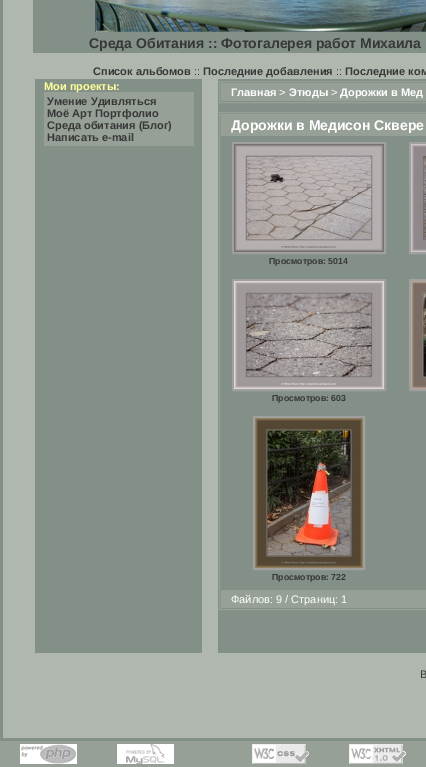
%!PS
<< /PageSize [426 767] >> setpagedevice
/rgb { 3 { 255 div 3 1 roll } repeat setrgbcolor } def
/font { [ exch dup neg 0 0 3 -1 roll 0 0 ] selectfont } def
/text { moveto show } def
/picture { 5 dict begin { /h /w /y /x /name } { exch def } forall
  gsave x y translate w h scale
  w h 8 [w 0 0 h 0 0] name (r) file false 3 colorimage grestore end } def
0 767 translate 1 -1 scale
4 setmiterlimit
150 160 150 rgb
0 0 426 767 rectfill
131 144 135 rgb
0 0 426 741 rectfill
175 183 175 rgb
3 0 423 738 rectfill
131 144 135 rgb
33 0 393 53 rectfill
(img_01.rgb) 94 0 332 33 picture
35 79 167 574 rectfill
150 160 150 rgb
44 92 150 54 rectfill
131 144 135 rgb
218 79 208 574 rectfill
150 160 150 rgb
219.5 81.5 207 21 rectstroke
221 83 205 18 rectfill
219.5 112.5 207 497 rectstroke
221 114 205 22 rectfill
160 160 160 rgb
2 setlinewidth
410 143 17 110 rectstroke
(img_02.rgb) 411 144 15 108 picture
233 143 152 110 rectstroke
(img_03.rgb) 234 144 150 108 picture
410 280 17 110 rectstroke
(img_04.rgb) 411 281 15 108 picture
233 280 152 110 rectstroke
(img_05.rgb) 234 281 150 108 picture
254 417 110 152 rectstroke
(img_06.rgb) 255 418 108 150 picture
150 160 150 rgb
221 590 205 18 rectfill
(img_07.rgb) 20 744 57 20 picture
(img_08.rgb) 117 744 57 20 picture
(img_09.rgb) 252 744 57 20 picture
(img_10.rgb) 349 744 57 20 picture
/LiberationSans-Bold 14 font
56 56 56 rgb
(Среда Обитания :: Фотогалерея работ Михаила) 89 48 text
/LiberationSans-Bold 11 font
(Список альбомов) 93 75 text
/LiberationSans-Regular 11 font
(::) 194 75 text
/LiberationSans-Bold 11 font
(Последние добавления) 203 75 text
/LiberationSans-Regular 11 font
(::) 336 75 text
/LiberationSans-Bold 11 font
(Последние ком) 345 75 text
255 255 153 rgb
(Мои проекты:) 44 90 text
56 56 56 rgb
(Умение Удивляться) 47 105 text
(Моё Арт Портфолио) 47 117 text
(Среда обитания \(Блог\)) 47 129 text
(Написать e-mail) 47 141 text
255 255 255 rgb
(Главная) 231 96 text
/LiberationSans-Regular 11 font
(>) 279 96 text
/LiberationSans-Bold 11 font
(Этюды) 289 96 text
/LiberationSans-Regular 11 font
(>) 331 96 text
/LiberationSans-Bold 11 font
(Дорожки в Мед) 340 96 text
/LiberationSans-Bold 14 font
(Дорожки в Медисон Сквере) 231 130 text
/LiberationSans-Bold 8.75 font
56 56 56 rgb
(Просмотров: 5014) 269 264 text
(Просмотров: 603) 272 401 text
(Просмотров: 722) 272 580 text
/LiberationSans-Regular 11 font
255 255 255 rgb
(Файлов: 9 / Страниц: 1) 231 603 text
56 56 56 rgb
(В) 420 678 text
showpage
